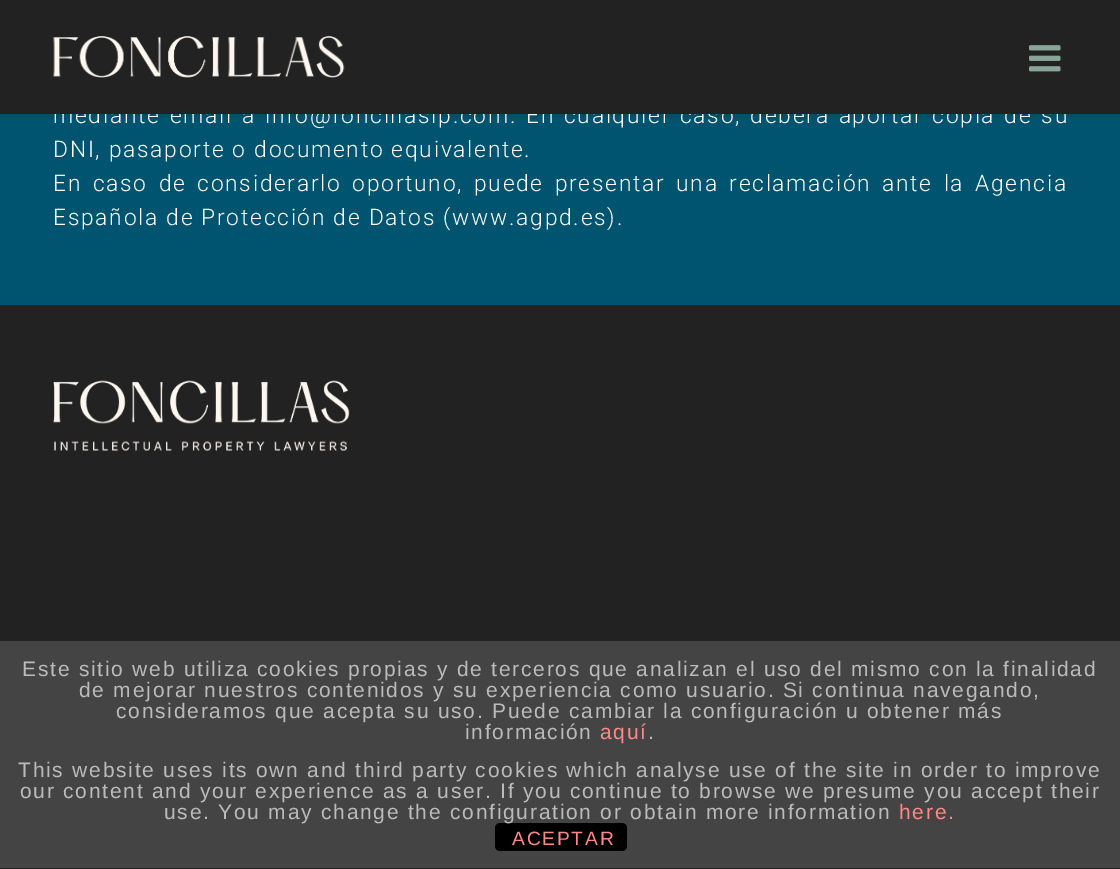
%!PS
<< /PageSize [1120 869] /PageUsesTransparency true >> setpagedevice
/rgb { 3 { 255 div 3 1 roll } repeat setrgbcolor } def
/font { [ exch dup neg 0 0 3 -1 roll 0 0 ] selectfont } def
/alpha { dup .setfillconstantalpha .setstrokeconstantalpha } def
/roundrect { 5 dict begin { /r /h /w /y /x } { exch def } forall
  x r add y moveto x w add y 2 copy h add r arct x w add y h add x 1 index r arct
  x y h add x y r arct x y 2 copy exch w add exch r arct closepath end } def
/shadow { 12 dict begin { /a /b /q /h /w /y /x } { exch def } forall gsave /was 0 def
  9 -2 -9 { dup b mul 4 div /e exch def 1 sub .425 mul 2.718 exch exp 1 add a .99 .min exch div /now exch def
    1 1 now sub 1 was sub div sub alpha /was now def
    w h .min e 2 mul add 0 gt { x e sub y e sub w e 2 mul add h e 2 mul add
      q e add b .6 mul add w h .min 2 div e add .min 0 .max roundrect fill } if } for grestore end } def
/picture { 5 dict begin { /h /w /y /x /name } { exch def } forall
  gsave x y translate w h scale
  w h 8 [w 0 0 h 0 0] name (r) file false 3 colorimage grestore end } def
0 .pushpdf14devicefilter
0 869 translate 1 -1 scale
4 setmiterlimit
0 84 112 rgb
0 0 1120 869 rectfill
0 0 0 rgb
0 2 1120 114 0 2.5 0.12 shadow
34 34 34 rgb
0 305 1120 336 rectfill
(img_03.rgb) 53 380 297 71 picture
68 68 68 rgb
0 641 1120 227 rectfill
34 34 34 rgb
0 868 1120 1 rectfill
0 0 0 rgb
495 823 132 28 5 roundrect fill
/Roboto-Light 22.75 font
255 255 255 rgb
53 123 moveto 1.75 0 32 1.75 0 (mediante email a info@foncillasip.com. En cualquier caso, deberá aportar copia de su) awidthshow
34 34 34 rgb
0 0 1120 114 rectfill
(img_02.rgb) 1029 45 32 27 picture
(img_01.rgb) 53 36 292 42 picture
255 255 255 rgb
53 157 moveto 1.75 0 (DNI, pasaporte o documento equivalente.) ashow
53 191 moveto 3.4 0 32 1.75 0 (En caso de considerarlo oportuno, puede presentar una reclamación ante la Agencia) awidthshow
53 225 moveto 1.75 0 (Española de Protección de Datos \(www.agpd.es\).) ashow
/LiberationSans-Regular 21 font
187 187 187 rgb
22 676 moveto 1.75 0 (Este sitio web utiliza cookies propias y de terceros que analizan el uso del mismo con la finalidad) ashow
79 697 moveto 1.75 0 (de mejorar nuestros contenidos y su experiencia como usuario. Si continua navegando,) ashow
116 718 moveto 1.75 0 (consideramos que acepta su uso. Puede cambiar la configuración u obtener más) ashow
465 739 moveto 1.75 0 (información) ashow
255 136 136 rgb
600 739 moveto 1.75 0 (aquí) ashow
187 187 187 rgb
648 739 moveto 1.75 0 (.) ashow
18 777 moveto 1.75 0 (This website uses its own and third party cookies which analyse use of the site in order to improve) ashow
20 798 moveto 1.75 0 (our content and your experience as a user. If you continue to browse we presume you accept their) ashow
164 819 moveto 1.75 0 (use. You may change the configuration or obtain more information) ashow
255 136 136 rgb
899 819 moveto 1.75 0 (here.) ashow
/LiberationSans-Regular 19.25 font
512 845 moveto 1.75 0 (ACEPTAR) ashow
.poppdf14devicefilter showpage
